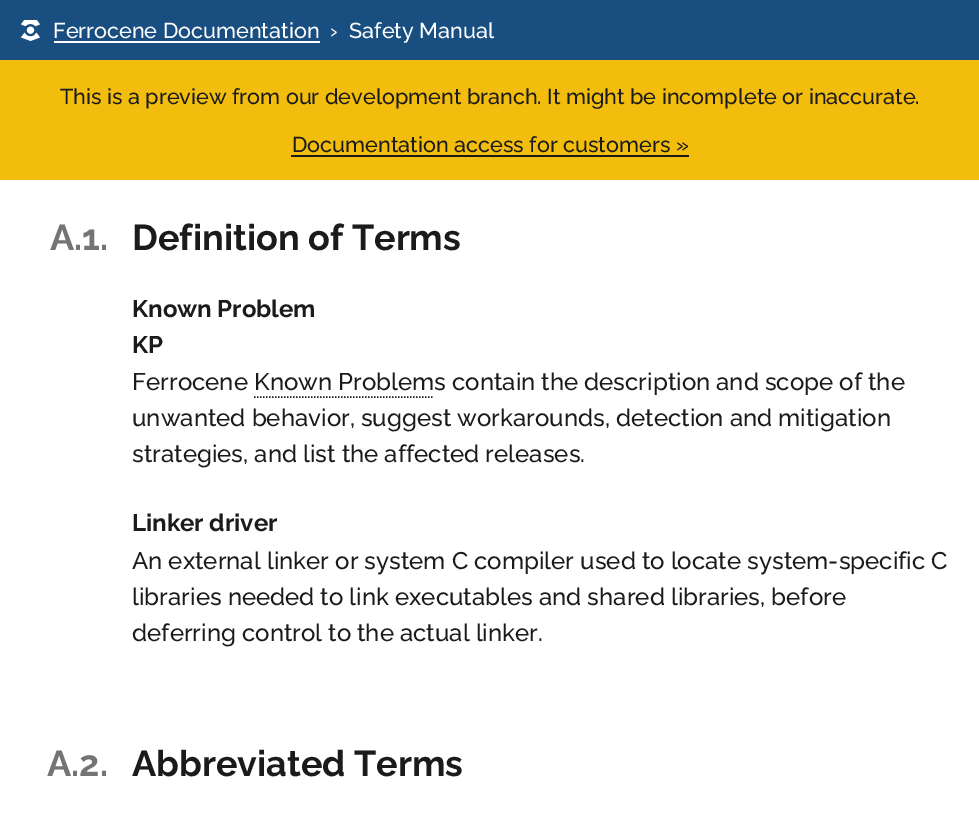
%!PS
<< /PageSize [979 838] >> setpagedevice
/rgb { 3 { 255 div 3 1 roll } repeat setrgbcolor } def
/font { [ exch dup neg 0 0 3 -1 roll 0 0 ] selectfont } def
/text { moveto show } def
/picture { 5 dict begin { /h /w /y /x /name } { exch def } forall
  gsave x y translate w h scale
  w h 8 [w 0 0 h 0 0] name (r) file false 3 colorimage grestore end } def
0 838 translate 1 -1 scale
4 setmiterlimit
255 255 255 rgb
0 0 979 838 rectfill
25 78 128 rgb
0 0 979 60 rectfill
(img_01.rgb) 21 20 19 21 picture
255 255 255 rgb
54 41 266 2 rectfill
242 189 13 rgb
0 60 979 120 rectfill
27 27 27 rgb
291 155 398 2 rectfill
1.5 setlinewidth
[1.5 1.5] 0 setdash
254 397 moveto 180 0 rlineto stroke
/Raleway-Medium 21.6 font
255 255 255 rgb
(Ferrocene Documentation) 53 38 text
(›) 330 38 text
(Safety Manual) 349 38 text
27 27 27 rgb
(This is a preview from our development branch. It might be incomplete or inaccurate.) 60 104 text
(Documentation access for customers ») 292 152 text
/Raleway-Bold 36 font
116 116 116 rgb
(A.1.) 50 250 text
27 27 27 rgb
(Definition of Terms) 132 250 text
/Raleway-Bold 24 font
(Known Problem) 132 317 text
(KP) 132 353 text
/Raleway-Medium 24 font
(Ferrocene Known Problems contain the description and scope of the) 132 390 text
(unwanted behavior, suggest workarounds, detection and mitigation) 132 426 text
(strategies, and list the affected releases.) 132 462 text
/Raleway-Bold 24 font
(Linker driver) 132 531 text
/Raleway-Medium 24 font
(An external linker or system C compiler used to locate system-specific C) 132 569 text
(libraries needed to link executables and shared libraries, before) 132 605 text
(deferring control to the actual linker.) 132 641 text
/Raleway-Bold 36 font
116 116 116 rgb
(A.2.) 47 776 text
27 27 27 rgb
(Abbreviated Terms) 132 776 text
showpage
